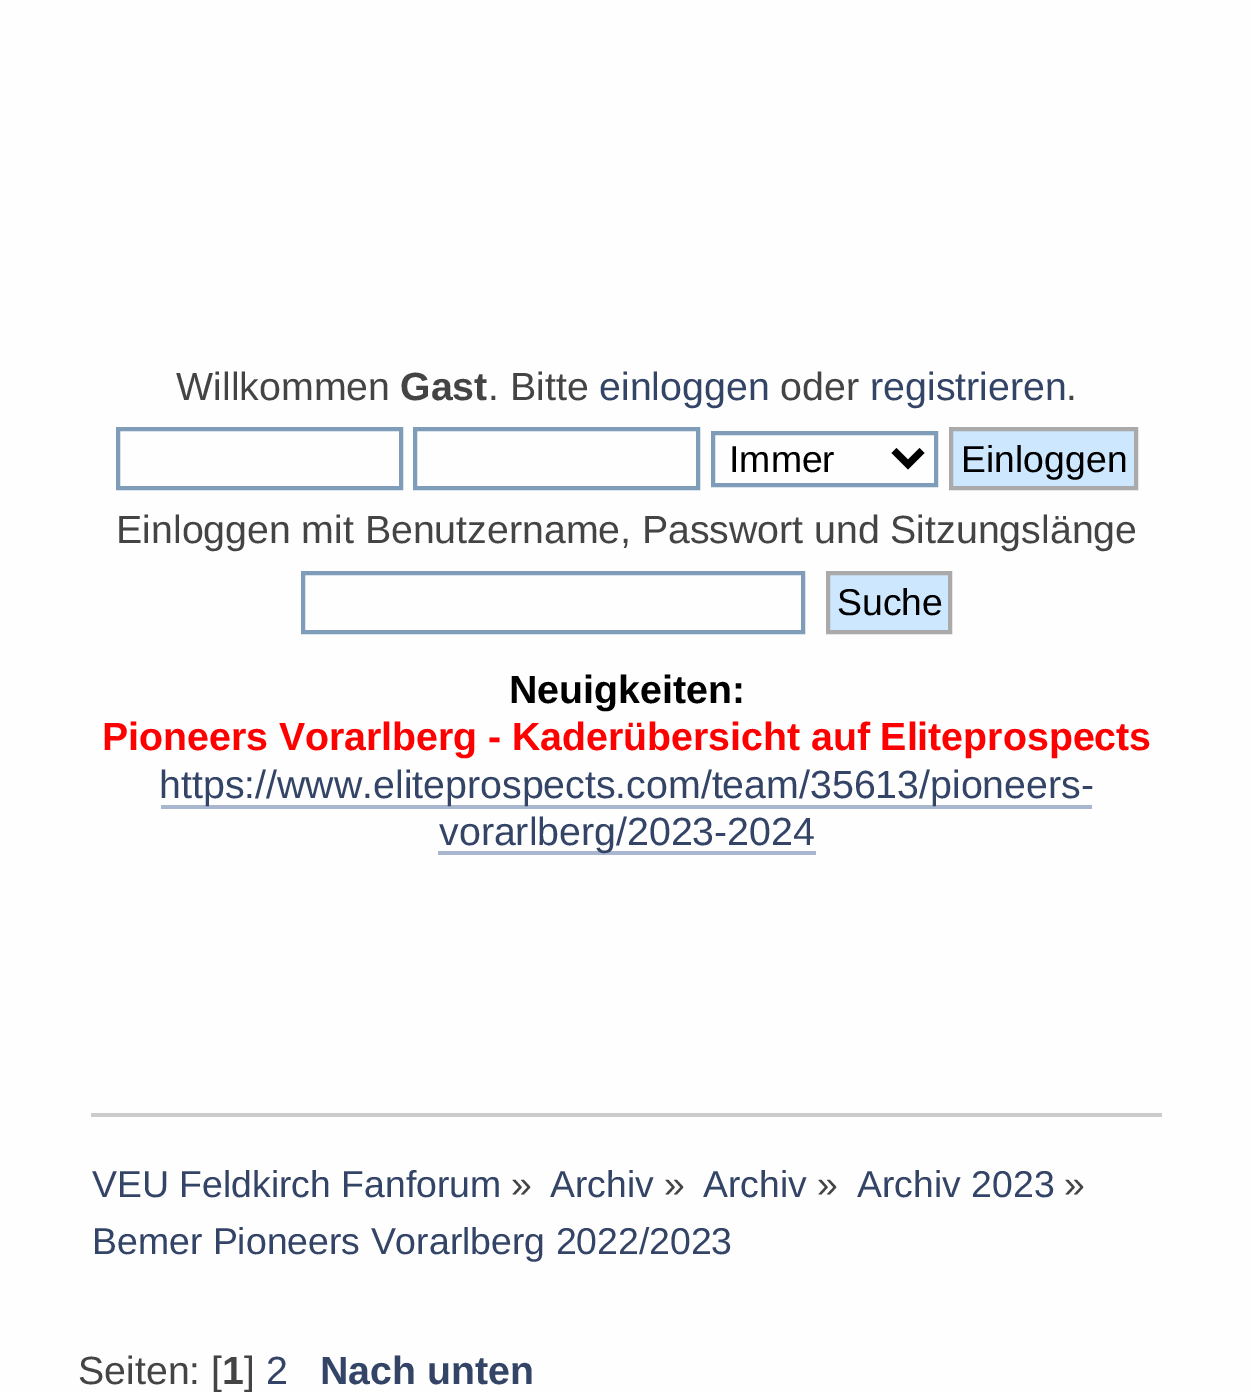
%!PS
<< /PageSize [1251 1392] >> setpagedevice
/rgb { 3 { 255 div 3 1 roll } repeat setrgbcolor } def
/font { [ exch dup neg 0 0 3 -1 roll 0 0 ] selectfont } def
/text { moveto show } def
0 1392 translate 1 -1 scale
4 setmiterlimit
254 254 254 rgb
0 0 1251 1392 rectfill
127 157 185 rgb
4 setlinewidth
118 429 283 59 rectstroke
415 429 283 59 rectstroke
713 433 223 52 rectstroke
0 0 0 rgb
7 setlinewidth
894 450.5 moveto 14 14 rlineto 14 -14 rlineto stroke
205 231 255 rgb
951 429 moveto 185 0 rlineto 0 59 rlineto -185 0 rlineto closepath gsave fill grestore
170 170 170 rgb
4 setlinewidth
stroke
127 157 185 rgb
303 573 500 59 rectstroke
205 231 255 rgb
828 573 moveto 122 0 rlineto 0 59 rlineto -122 0 rlineto closepath gsave fill grestore
170 170 170 rgb
stroke
168 182 207 rgb
161 805 931 4 rectfill
438 851 378 4 rectfill
204 204 204 rgb
91 1113 1071 4 rectfill
/LiberationSans-Regular 39.3 font
68 68 68 rgb
(Willkommen) 176 400 text
/LiberationSans-Bold 39.3 font
(Gast) 400 400 text
/LiberationSans-Regular 39.3 font
(. Bitte) 488 400 text
51 68 102 rgb
(einloggen) 599 400 text
68 68 68 rgb
(oder) 780 400 text
51 68 102 rgb
(registrieren) 870 400 text
68 68 68 rgb
(.) 1066 400 text
/LiberationSans-Regular 37.4 font
0 0 0 rgb
(Immer) 729 472 text
(Einloggen) 961 472 text
/LiberationSans-Regular 39.3 font
68 68 68 rgb
116 543 moveto -0.25 0 32 (Einloggen mit Benutzername, Passwort und Sitzungslänge) widthshow
/LiberationSans-Regular 37.4 font
0 0 0 rgb
(Suche) 837 615 text
/LiberationSans-Bold 39.3 font
(Neuigkeiten:) 509 703 text
255 0 0 rgb
102 750 moveto -0.25 0 32 (Pioneers Vorarlberg - Kaderübersicht auf Eliteprospects) widthshow
/LiberationSans-Regular 39.3 font
51 68 102 rgb
(https://www.eliteprospects.com/team/35613/pioneers-) 159 798 text
(vorarlberg/2023-2024) 439 845 text
/LiberationSans-Regular 37.4 font
(VEU Feldkirch Fanforum) 92 1197 text
68 68 68 rgb
(») 511 1197 text
51 68 102 rgb
(Archiv) 550 1197 text
68 68 68 rgb
(») 664 1197 text
51 68 102 rgb
(Archiv) 703 1197 text
68 68 68 rgb
(») 817 1197 text
51 68 102 rgb
(Archiv 2023) 857 1197 text
68 68 68 rgb
(») 1064 1197 text
51 68 102 rgb
(Bemer Pioneers Vorarlberg 2022/2023) 92 1254 text
/LiberationSans-Regular 39.3 font
68 68 68 rgb
(Seiten: [) 78 1384 text
/LiberationSans-Bold 39.3 font
(1) 222 1384 text
/LiberationSans-Regular 39.3 font
(]) 244 1384 text
51 68 102 rgb
(2) 266 1384 text
/LiberationSans-Bold 39.3 font
(Nach unten) 320 1384 text
showpage
